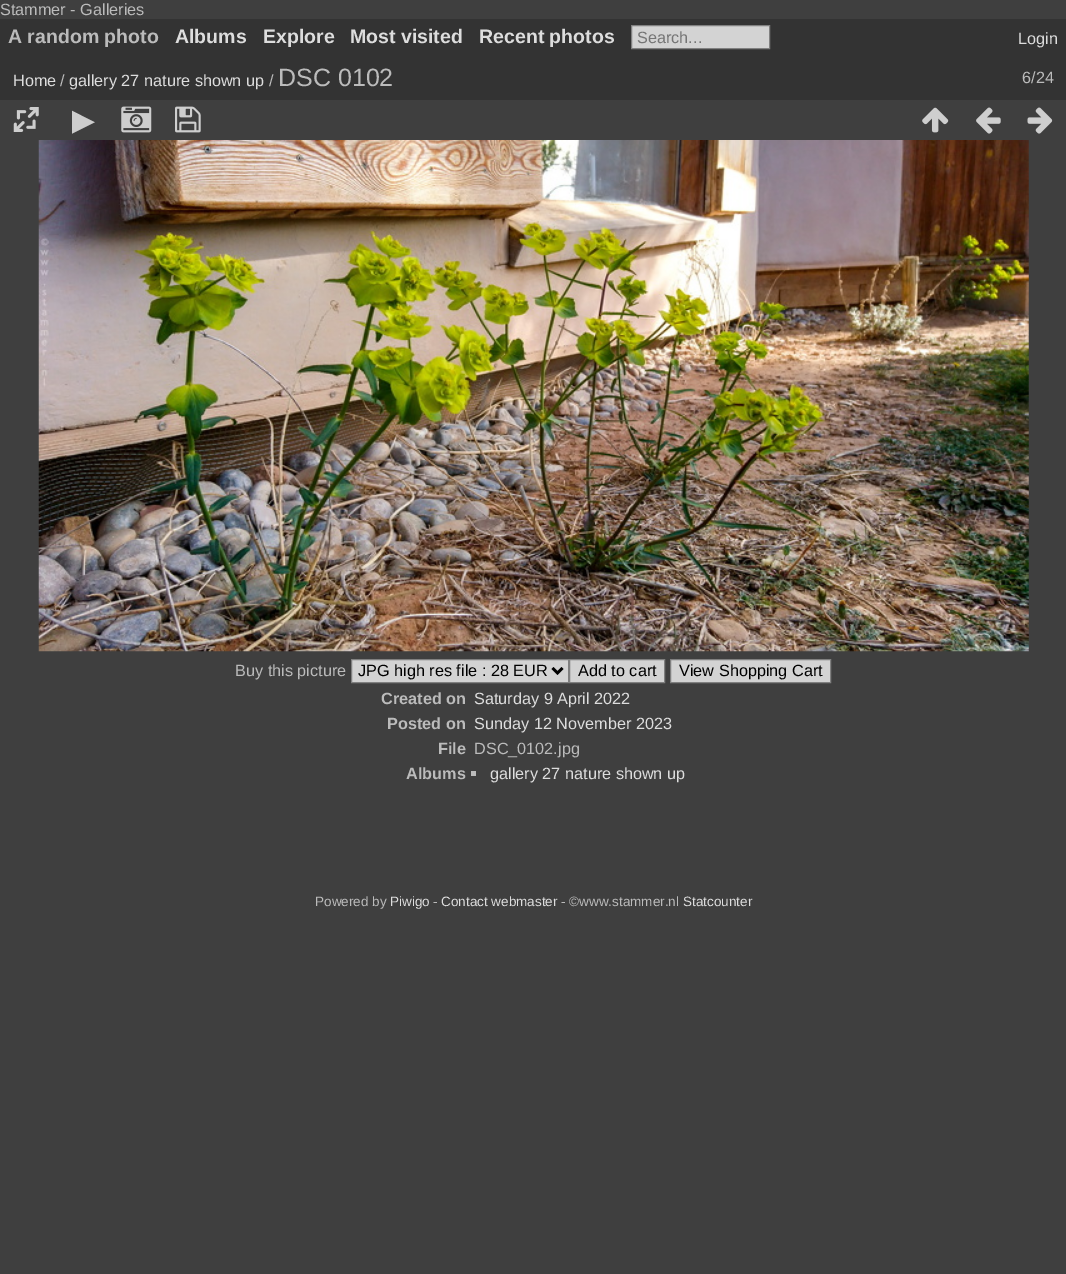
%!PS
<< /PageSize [1066 1274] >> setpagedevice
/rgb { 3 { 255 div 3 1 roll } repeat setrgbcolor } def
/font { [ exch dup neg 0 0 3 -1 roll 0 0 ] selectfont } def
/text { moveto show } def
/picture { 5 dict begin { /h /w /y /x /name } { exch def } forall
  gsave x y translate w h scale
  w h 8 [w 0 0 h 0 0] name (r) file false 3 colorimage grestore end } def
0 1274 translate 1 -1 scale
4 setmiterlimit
63 63 63 rgb
0 0 1066 1274 rectfill
51 51 51 rgb
0 19 1066 81 rectfill
211 211 211 rgb
631.5 25.5 moveto 138 0 rlineto 0 23 rlineto -138 0 rlineto closepath gsave fill grestore
128 128 128 rgb
stroke
(img_01.rgb) 13 107 26 25 picture
(img_02.rgb) 121 106 31 27 picture
(img_03.rgb) 175 106 26 27 picture
(img_04.rgb) 922 107 27 26 picture
(img_05.rgb) 976 107 25 27 picture
(img_06.rgb) 1027 107 26 27 picture
(img_07.rgb) 38 140 991 512 picture
211 211 211 rgb
351.5 659.5 moveto 217 0 rlineto 0 23 rlineto -217 0 rlineto closepath gsave fill grestore
128 128 128 rgb
stroke
0 0 0 rgb
2.5 setlinewidth
552.5 668 moveto 5 5 rlineto 5 -5 rlineto stroke
211 211 211 rgb
569.5 659.5 moveto 95 0 rlineto 0 23 rlineto -95 0 rlineto closepath gsave fill grestore
128 128 128 rgb
1 setlinewidth
stroke
211 211 211 rgb
670.5 659.5 moveto 160 0 rlineto 0 23 rlineto -160 0 rlineto closepath gsave fill grestore
128 128 128 rgb
stroke
187 187 187 rgb
471 771 5 5 rectfill
/LiberationSans-Regular 16.25 font
(Stammer - Galleries) 0 15 text
/LiberationSans-Bold 19.5 font
(A random photo) 8 43 text
221 221 221 rgb
(Albums) 175 43 text
(Explore) 263 43 text
(Most visited) 350 43 text
(Recent photos) 479 43 text
/LiberationSans-Regular 16.25 font
117 117 117 rgb
(Search...) 637 43 text
221 221 221 rgb
(Login) 1018 44 text
(Home) 13 86 text
187 187 187 rgb
(/) 60 86 text
221 221 221 rgb
(gallery 27 nature shown up) 69 86 text
187 187 187 rgb
(/) 269 86 text
/LiberationSans-Regular 25 font
(DSC 0102) 278 86 text
/LiberationSans-Regular 16.25 font
(6/24) 1022 83 text
/DejaVuSans-Regular 30 font
205 205 205 rgb
(▶) 72 130 text
/LiberationSans-Regular 16.25 font
187 187 187 rgb
(Buy this picture) 235 676 text
0 0 0 rgb
(JPG high res file : 28 EUR) 358 676 text
(Add to cart) 578 676 text
(View Shopping Cart) 679 676 text
/LiberationSans-Bold 16.25 font
187 187 187 rgb
(Created on) 381 704 text
/LiberationSans-Regular 16.25 font
221 221 221 rgb
(Saturday 9 April 2022) 474 704 text
/LiberationSans-Bold 16.25 font
187 187 187 rgb
(Posted on) 387 729 text
/LiberationSans-Regular 16.25 font
221 221 221 rgb
(Sunday 12 November 2023) 474 729 text
/LiberationSans-Bold 16.25 font
187 187 187 rgb
(File) 438 754 text
/LiberationSans-Regular 16.25 font
(DSC_0102.jpg) 474 754 text
/LiberationSans-Bold 16.25 font
(Albums) 406 779 text
/LiberationSans-Regular 16.25 font
221 221 221 rgb
(gallery 27 nature shown up) 490 779 text
/LiberationSans-Regular 13.5 font
187 187 187 rgb
(Powered by) 315 906 text
221 221 221 rgb
(Piwigo) 390 906 text
187 187 187 rgb
(-) 433 906 text
221 221 221 rgb
(Contact webmaster) 441 906 text
187 187 187 rgb
(- ©www.stammer.nl) 561 906 text
221 221 221 rgb
(Statcounter) 683 906 text
showpage
